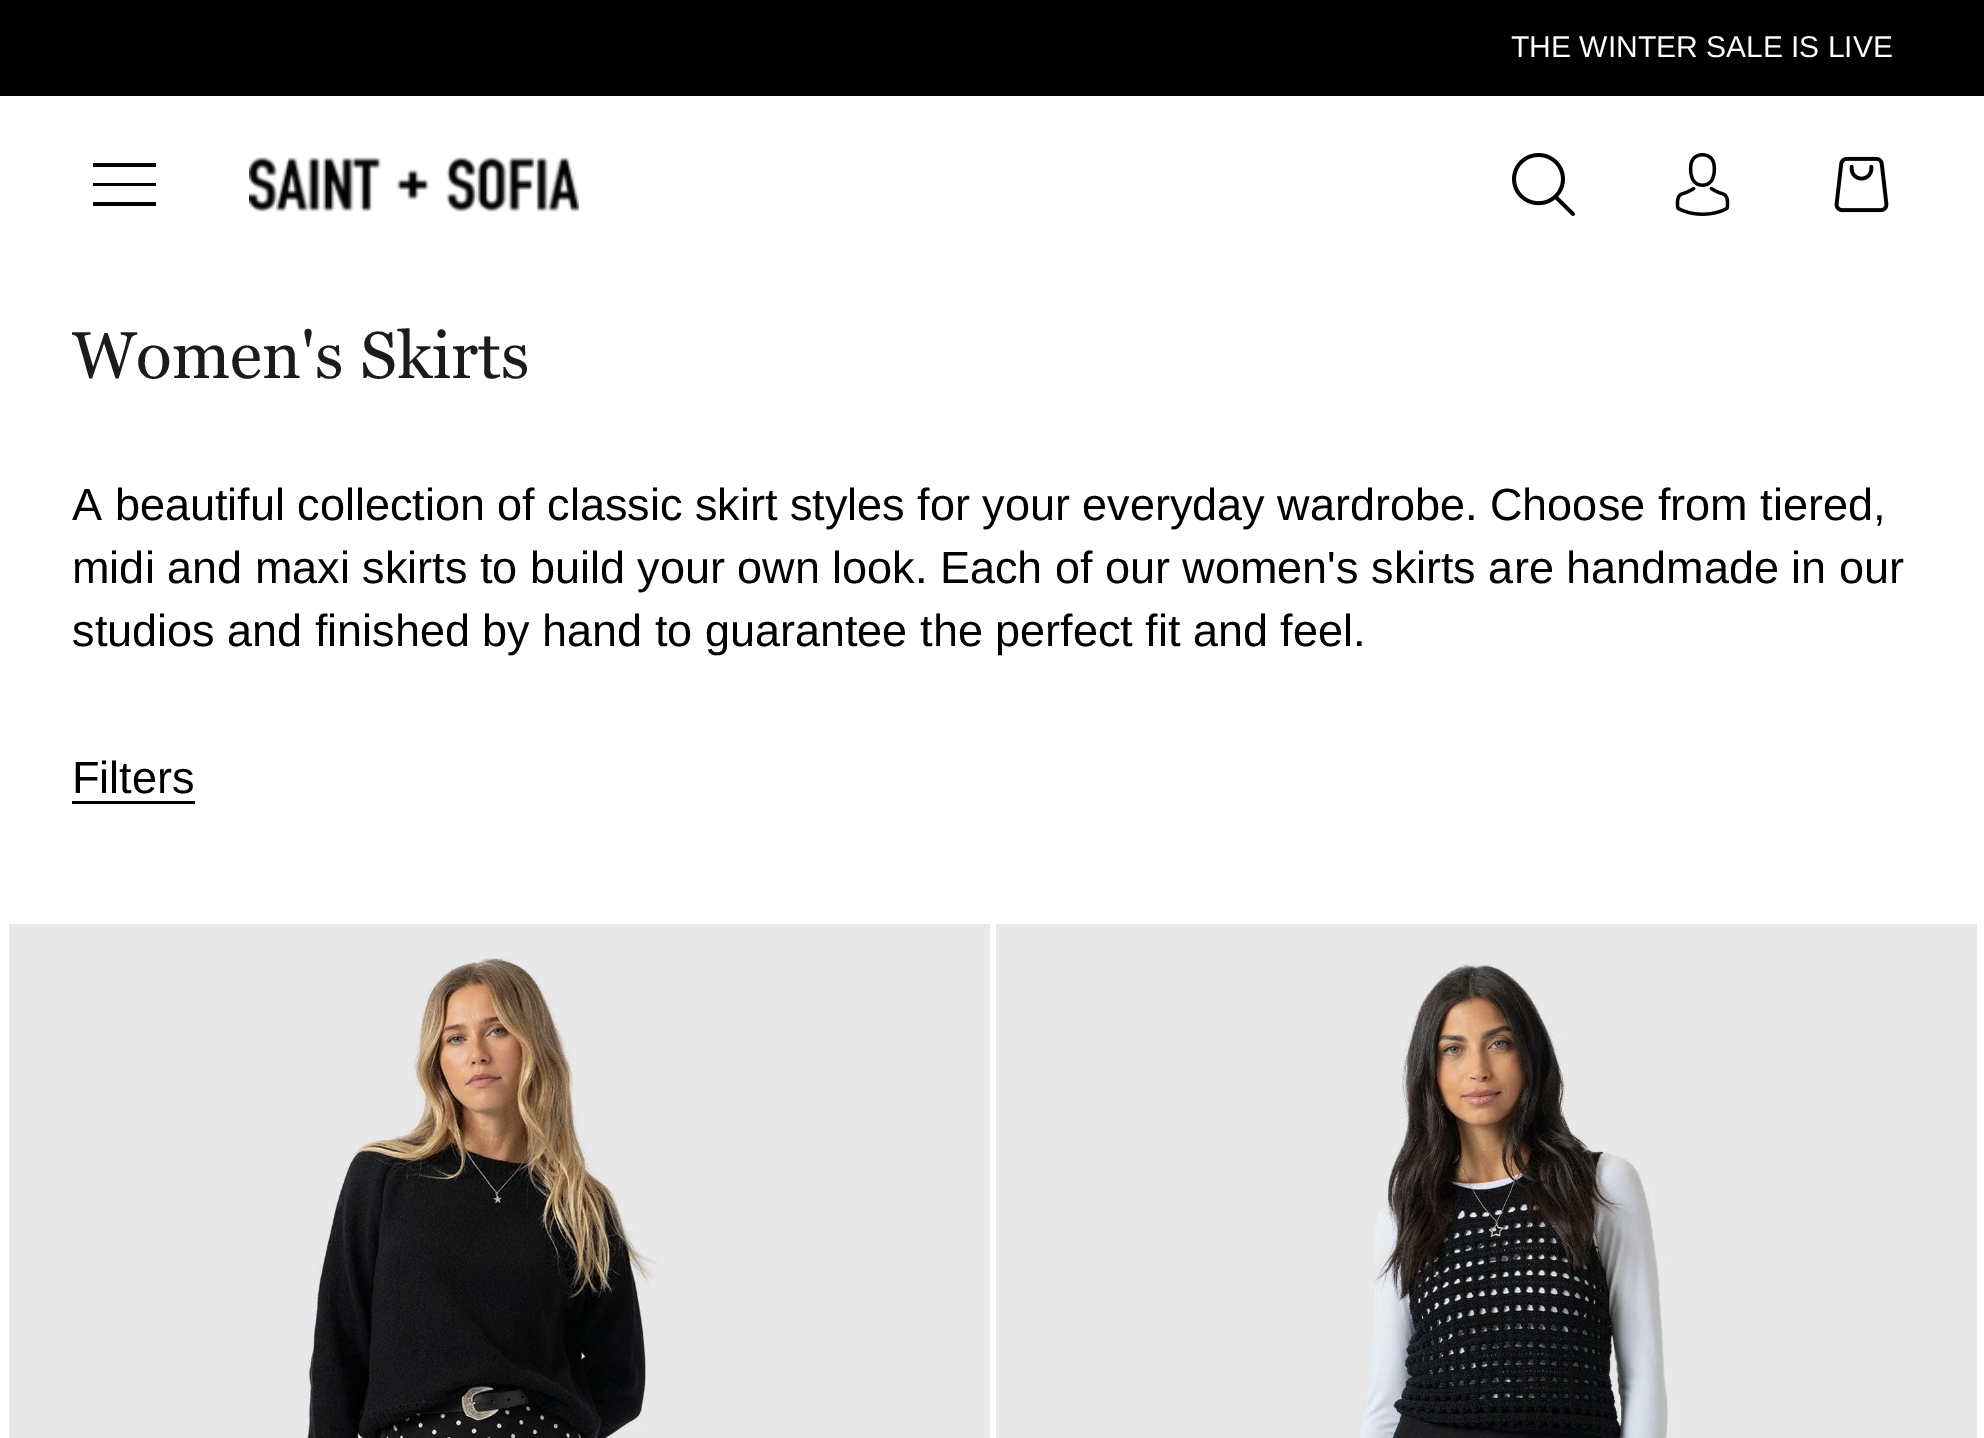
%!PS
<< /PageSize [1984 1438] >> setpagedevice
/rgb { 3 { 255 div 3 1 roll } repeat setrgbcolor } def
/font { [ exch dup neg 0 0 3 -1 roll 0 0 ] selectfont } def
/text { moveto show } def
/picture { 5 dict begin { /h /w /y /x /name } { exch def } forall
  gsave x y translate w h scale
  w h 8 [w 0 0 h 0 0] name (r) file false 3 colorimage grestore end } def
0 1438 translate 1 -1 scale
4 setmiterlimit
255 255 255 rgb
0 0 1984 1438 rectfill
0 0 0 rgb
0 0 1984 96 rectfill
93 163 moveto 0 4 rlineto 63 0 rlineto 0 -4 rlineto closepath 93 186 moveto 63 0 rlineto 0 -3 rlineto -63 0 rlineto closepath 93 206 moveto 63 0 rlineto 0 -4 rlineto -63 0 rlineto closepath fill
(img_01.rgb) 249 157 330 55 picture
(img_02.rgb) 1512 153 63 63 picture
(img_03.rgb) 1675 153 55 63 picture
(img_04.rgb) 1834 156 55 57 picture
72 801 123 3 rectfill
(img_05.rgb) 9 924 981 514 picture
(img_06.rgb) 996 924 981 514 picture
/LiberationSans-Regular 30 font
255 255 255 rgb
(THE WINTER SALE IS LIVE) 1511 57 text
/Georgia-Regular 66 font
28 27 27 rgb
(Women's Skirts) 72 378 text
/LiberationSans-Regular 45 font
0 0 0 rgb
(A beautiful collection of classic skirt styles for your everyday wardrobe. Choose from tiered,) 72 520 text
(midi and maxi skirts to build your own look. Each of our women's skirts are handmade in our) 72 583 text
(studios and finished by hand to guarantee the perfect fit and feel.) 72 646 text
(Filters) 72 793 text
showpage
